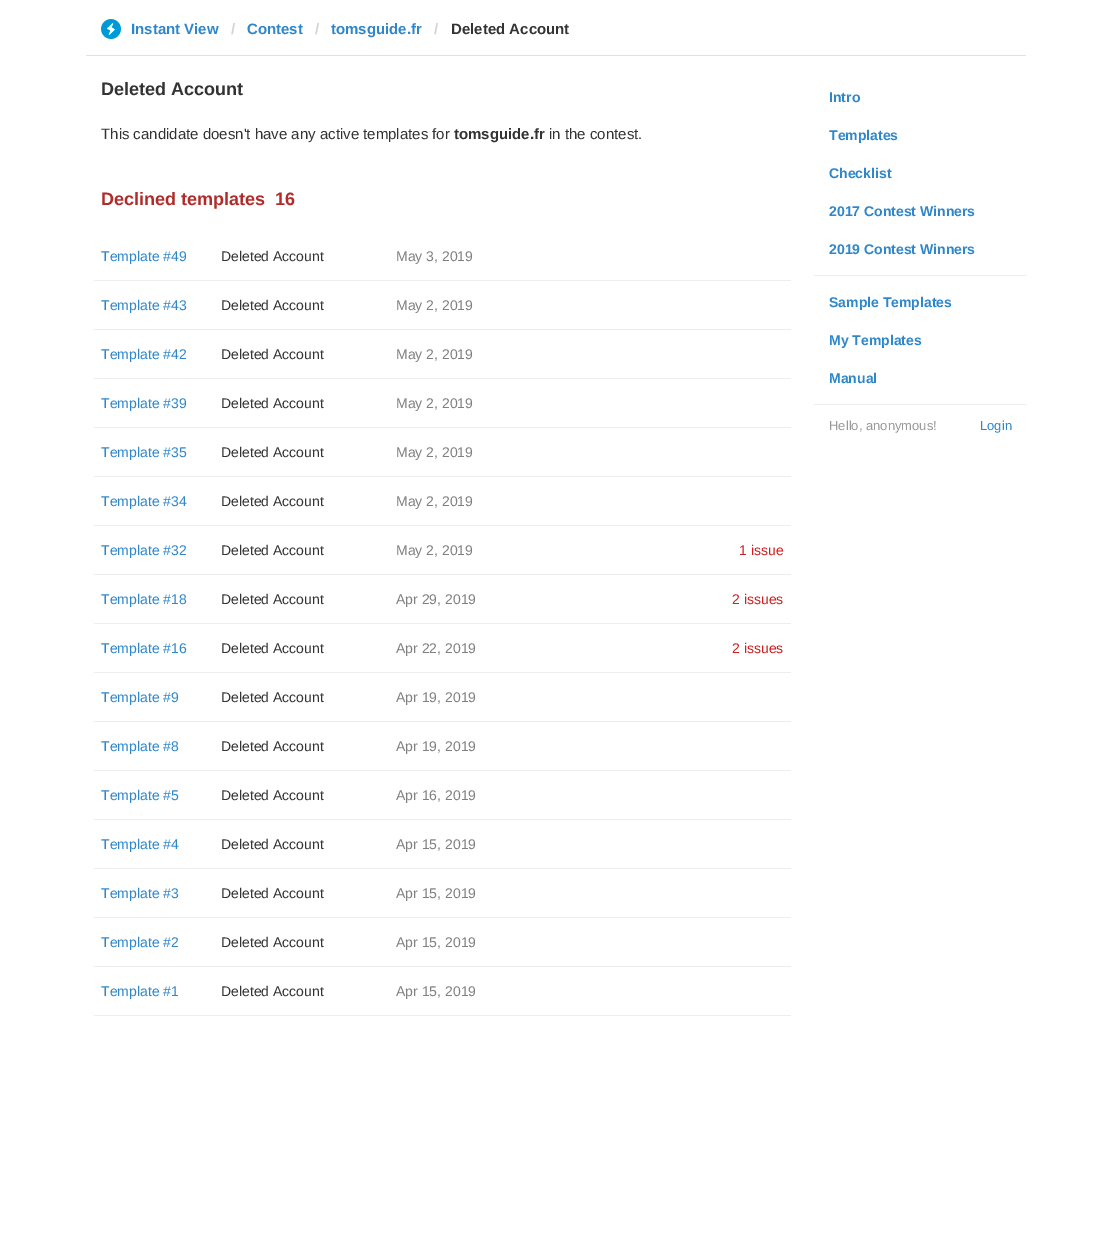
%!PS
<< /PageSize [1112 1244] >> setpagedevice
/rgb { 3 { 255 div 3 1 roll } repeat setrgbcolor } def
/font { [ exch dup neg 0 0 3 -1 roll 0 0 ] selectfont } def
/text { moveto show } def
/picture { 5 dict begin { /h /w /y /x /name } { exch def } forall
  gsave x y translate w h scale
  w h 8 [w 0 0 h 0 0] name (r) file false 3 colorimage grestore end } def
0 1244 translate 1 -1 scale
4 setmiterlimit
255 255 255 rgb
0 0 1112 1244 rectfill
224 224 224 rgb
86 55 940 1 rectfill
(img_01.rgb) 101 19 20 20 picture
237 237 237 rgb
94 280 697 1 rectfill
94 329 697 1 rectfill
94 378 697 1 rectfill
94 427 697 1 rectfill
94 476 697 1 rectfill
94 525 697 1 rectfill
94 574 697 1 rectfill
94 623 697 1 rectfill
94 672 697 1 rectfill
94 721 697 1 rectfill
94 770 697 1 rectfill
94 819 697 1 rectfill
94 868 697 1 rectfill
94 917 697 1 rectfill
94 966 697 1 rectfill
94 1015 697 1 rectfill
814 275 213 1 rectfill
814 404 213 1 rectfill
/LiberationSans-Bold 15 font
46 135 202 rgb
(Instant View) 131 34 text
212 212 212 rgb
(/) 231 34 text
46 135 202 rgb
(Contest) 247 34 text
212 212 212 rgb
(/) 315 34 text
46 135 202 rgb
(tomsguide.fr) 331 34 text
212 212 212 rgb
(/) 434 34 text
51 51 51 rgb
(Deleted Account) 451 34 text
/LiberationSans-Bold 18 font
(Deleted Account) 101 95 text
/LiberationSans-Regular 15 font
(This candidate doesn't have any active templates for) 101 139 text
/LiberationSans-Bold 15 font
(tomsguide.fr) 454 139 text
/LiberationSans-Regular 15 font
(in the contest.) 549 139 text
/LiberationSans-Bold 18 font
177 43 43 rgb
(Declined templates) 101 205 text
(16) 275 205 text
/LiberationSans-Regular 14 font
46 135 202 rgb
(Template #49) 101 261 text
51 51 51 rgb
(Deleted Account) 221 261 text
128 128 128 rgb
(May 3, 2019) 396 261 text
46 135 202 rgb
(Template #43) 101 310 text
51 51 51 rgb
(Deleted Account) 221 310 text
128 128 128 rgb
(May 2, 2019) 396 310 text
46 135 202 rgb
(Template #42) 101 359 text
51 51 51 rgb
(Deleted Account) 221 359 text
128 128 128 rgb
(May 2, 2019) 396 359 text
46 135 202 rgb
(Template #39) 101 408 text
51 51 51 rgb
(Deleted Account) 221 408 text
128 128 128 rgb
(May 2, 2019) 396 408 text
46 135 202 rgb
(Template #35) 101 457 text
51 51 51 rgb
(Deleted Account) 221 457 text
128 128 128 rgb
(May 2, 2019) 396 457 text
46 135 202 rgb
(Template #34) 101 506 text
51 51 51 rgb
(Deleted Account) 221 506 text
128 128 128 rgb
(May 2, 2019) 396 506 text
46 135 202 rgb
(Template #32) 101 555 text
51 51 51 rgb
(Deleted Account) 221 555 text
128 128 128 rgb
(May 2, 2019) 396 555 text
203 32 32 rgb
(1 issue) 739 555 text
46 135 202 rgb
(Template #18) 101 604 text
51 51 51 rgb
(Deleted Account) 221 604 text
128 128 128 rgb
(Apr 29, 2019) 396 604 text
203 32 32 rgb
(2 issues) 732 604 text
46 135 202 rgb
(Template #16) 101 653 text
51 51 51 rgb
(Deleted Account) 221 653 text
128 128 128 rgb
(Apr 22, 2019) 396 653 text
203 32 32 rgb
(2 issues) 732 653 text
46 135 202 rgb
(Template #9) 101 702 text
51 51 51 rgb
(Deleted Account) 221 702 text
128 128 128 rgb
(Apr 19, 2019) 396 702 text
46 135 202 rgb
(Template #8) 101 751 text
51 51 51 rgb
(Deleted Account) 221 751 text
128 128 128 rgb
(Apr 19, 2019) 396 751 text
46 135 202 rgb
(Template #5) 101 800 text
51 51 51 rgb
(Deleted Account) 221 800 text
128 128 128 rgb
(Apr 16, 2019) 396 800 text
46 135 202 rgb
(Template #4) 101 849 text
51 51 51 rgb
(Deleted Account) 221 849 text
128 128 128 rgb
(Apr 15, 2019) 396 849 text
46 135 202 rgb
(Template #3) 101 898 text
51 51 51 rgb
(Deleted Account) 221 898 text
128 128 128 rgb
(Apr 15, 2019) 396 898 text
46 135 202 rgb
(Template #2) 101 947 text
51 51 51 rgb
(Deleted Account) 221 947 text
128 128 128 rgb
(Apr 15, 2019) 396 947 text
46 135 202 rgb
(Template #1) 101 996 text
51 51 51 rgb
(Deleted Account) 221 996 text
128 128 128 rgb
(Apr 15, 2019) 396 996 text
/LiberationSans-Bold 14 font
46 135 202 rgb
(Intro) 829 102 text
(Templates) 829 140 text
(Checklist) 829 178 text
(2017 Contest Winners) 829 216 text
(2019 Contest Winners) 829 254 text
(Sample Templates) 829 307 text
(My Templates) 829 345 text
(Manual) 829 383 text
/LiberationSans-Regular 13 font
153 153 153 rgb
(Hello, anonymous!) 829 430 text
46 135 202 rgb
(Login) 980 430 text
showpage
